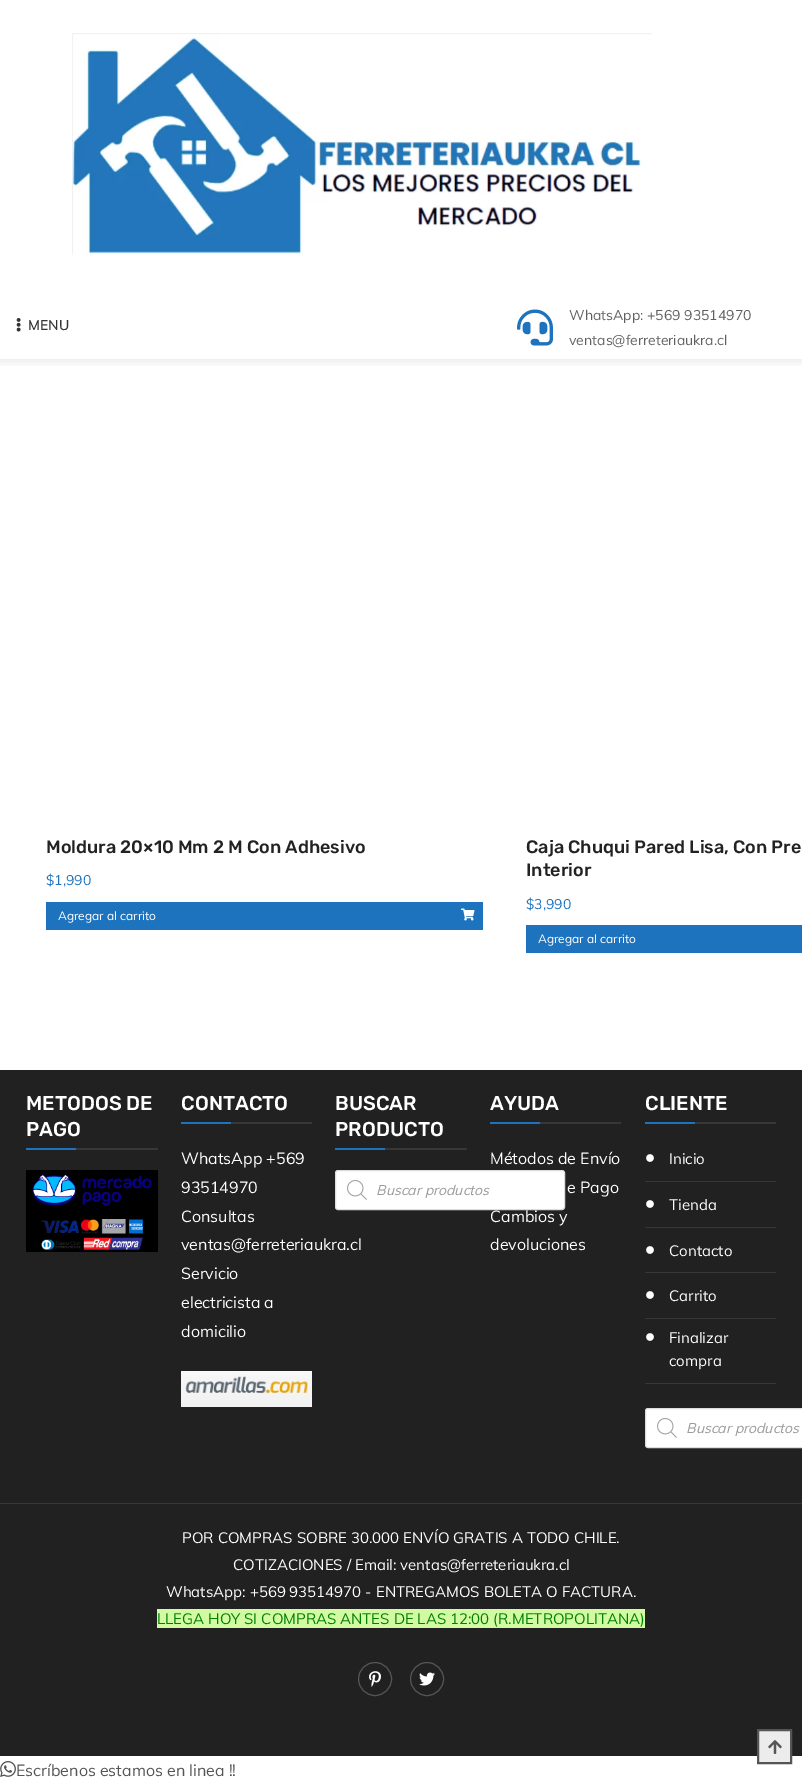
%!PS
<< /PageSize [802 1784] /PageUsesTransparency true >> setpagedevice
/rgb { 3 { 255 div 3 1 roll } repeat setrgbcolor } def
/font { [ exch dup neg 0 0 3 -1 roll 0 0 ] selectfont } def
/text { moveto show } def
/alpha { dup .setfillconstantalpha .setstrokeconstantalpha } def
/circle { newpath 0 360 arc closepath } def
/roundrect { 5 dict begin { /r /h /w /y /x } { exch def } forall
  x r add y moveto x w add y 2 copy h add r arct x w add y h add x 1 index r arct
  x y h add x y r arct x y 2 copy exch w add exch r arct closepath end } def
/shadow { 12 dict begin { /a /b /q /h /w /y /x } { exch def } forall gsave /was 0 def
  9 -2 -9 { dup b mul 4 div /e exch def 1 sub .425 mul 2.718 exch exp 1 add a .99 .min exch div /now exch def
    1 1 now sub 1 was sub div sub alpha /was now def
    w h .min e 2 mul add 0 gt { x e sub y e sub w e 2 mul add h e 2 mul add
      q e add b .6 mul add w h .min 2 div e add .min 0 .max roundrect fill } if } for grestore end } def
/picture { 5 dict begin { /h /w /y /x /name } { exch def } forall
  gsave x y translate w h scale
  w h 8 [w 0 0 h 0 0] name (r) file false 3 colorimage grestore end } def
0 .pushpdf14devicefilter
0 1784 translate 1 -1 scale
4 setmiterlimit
255 255 255 rgb
0 0 802 1784 rectfill
gsave
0 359 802 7 rectclip
0 0 0 rgb
0 2 802 359 0 6 0.1 shadow
grestore
(img_01.rgb) 72 33 580 223 picture
(img_02.rgb) 16 318 5 14 picture
(img_03.rgb) 517 309 36 37 picture
30 115 190 rgb
46 902 437 28 rectfill
(img_04.rgb) 461 908 14 13 picture
526 925 276 28 rectfill
33 33 33 rgb
0 1070 802 686 rectfill
55 55 55 rgb
76 1148 82 2 rectfill
30 115 190 rgb
26 1148 50 2 rectfill
(img_05.rgb) 26 1170 132 82 picture
55 55 55 rgb
231 1122 81 2 rectfill
30 115 190 rgb
181 1122 50 2 rectfill
(img_06.rgb) 181 1371 131 36 picture
55 55 55 rgb
385 1148 82 2 rectfill
30 115 190 rgb
335 1148 50 2 rectfill
255 255 255 rgb
335.5 1170.5 229 39 2.5 roundrect gsave fill grestore
221 221 221 rgb
stroke
(img_07.rgb) 347 1180 20 20 picture
55 55 55 rgb
540 1122 81 2 rectfill
30 115 190 rgb
490 1122 50 2 rectfill
55 55 55 rgb
695 1122 81 2 rectfill
30 115 190 rgb
645 1122 50 2 rectfill
55 55 55 rgb
645 1181 131 1 rectfill
(img_08.rgb) 646 1154 8 8 picture
645 1227 131 1 rectfill
(img_08.rgb) 646 1200 8 8 picture
645 1272 131 1 rectfill
(img_08.rgb) 646 1246 8 8 picture
645 1318 131 1 rectfill
(img_08.rgb) 646 1291 8 8 picture
645 1383 131 1 rectfill
(img_08.rgb) 646 1333 8 8 picture
255 255 255 rgb
645.5 1408.5 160 39 2.5 roundrect gsave fill grestore
221 221 221 rgb
stroke
(img_07.rgb) 657 1418 20 20 picture
55 55 55 rgb
0 1503 802 1 rectfill
210 250 162 rgb
157 1609 488 19 rectfill
85 85 85 rgb
375 1679 16.5 circle stroke
(img_09.rgb) 369 1671 12 16 picture
427 1679 16.5 circle stroke
(img_10.rgb) 419 1672 16 14 picture
236 236 236 rgb
758 1730 moveto 33 0 rlineto 0 33 rlineto -33 0 rlineto closepath gsave fill grestore
85 85 85 rgb
2 setlinewidth
stroke
(img_11.rgb) 768 1740 14 14 picture
(img_12.rgb) 0 1761 16 16 picture
/Muli-SemiBold 14 font
51 51 51 rgb
(MENU) 28 330 text
/Muli-Regular 14 font
96 96 96 rgb
(WhatsApp: +569 93514970) 569 320 text
(ventas@ferreteriaukra.cl) 569 345 text
/Rubik-Medium 18 font
34 34 34 rgb
(Moldura 20×10 Mm 2 M Con Adhesivo) 46 853 text
/Muli-Regular 14 font
30 115 190 rgb
($1,990) 46 885 text
/Muli-Regular 12 font
255 255 255 rgb
(Agregar al carrito) 58 920 text
/Rubik-Medium 18 font
34 34 34 rgb
(Caja Chuqui Pared Lisa, Con Pre) 526 853 text
(Interior) 526 876 text
/Muli-Regular 14 font
30 115 190 rgb
($3,990) 526 909 text
/Muli-Regular 12 font
255 255 255 rgb
(Agregar al carrito) 538 943 text
/Rubik-Medium 20 font
(METODOS DE) 26 1110 text
(PAGO) 26 1136 text
(CONTACTO) 181 1110 text
/Muli-Regular 16 font
(WhatsApp +569) 181 1164 text
(93514970) 181 1193 text
(Consultas) 181 1222 text
(ventas@ferreteriaukra.cl) 181 1250 text
(Servicio) 181 1279 text
(electricista a) 181 1308 text
(domicilio) 181 1337 text
/Rubik-Medium 20 font
(BUSCAR) 335 1110 text
(PRODUCTO) 335 1136 text
/Muli-Italic 14 font
153 153 153 rgb
(Buscar productos) 376 1195 text
/Rubik-Medium 20 font
255 255 255 rgb
(AYUDA) 490 1110 text
/Muli-Regular 16 font
(Métodos de Envío) 490 1164 text
(e Pago) 567 1193 text
(Cambios y) 490 1222 text
(devoluciones) 490 1250 text
/Rubik-Medium 20 font
(CLIENTE) 645 1110 text
/Muli-Regular 15 font
(Inicio) 669 1164 text
(Tienda) 669 1210 text
(Contacto) 669 1256 text
(Carrito) 669 1301 text
(Finalizar) 669 1343 text
(compra) 669 1366 text
/Muli-Italic 14 font
153 153 153 rgb
(Buscar productos) 686 1433 text
/Muli-Regular 15 font
255 255 255 rgb
(POR COMPRAS SOBRE 30.000 ENVÍO GRATIS A TODO CHILE.) 182 1543 text
(COTIZACIONES / Email: ventas@ferreteriaukra.cl) 233 1570 text
(WhatsApp: +569 93514970 - ENTREGAMOS BOLETA O FACTURA.) 166 1597 text
0 128 0 rgb
(LLEGA HOY SI COMPRAS ANTES DE LAS 12:00 \(R.METROPOLITANA\)) 157 1624 text
/Muli-Regular 16 font
85 85 85 rgb
(Escríbenos estamos en linea !!) 16 1776 text
.poppdf14devicefilter showpage
